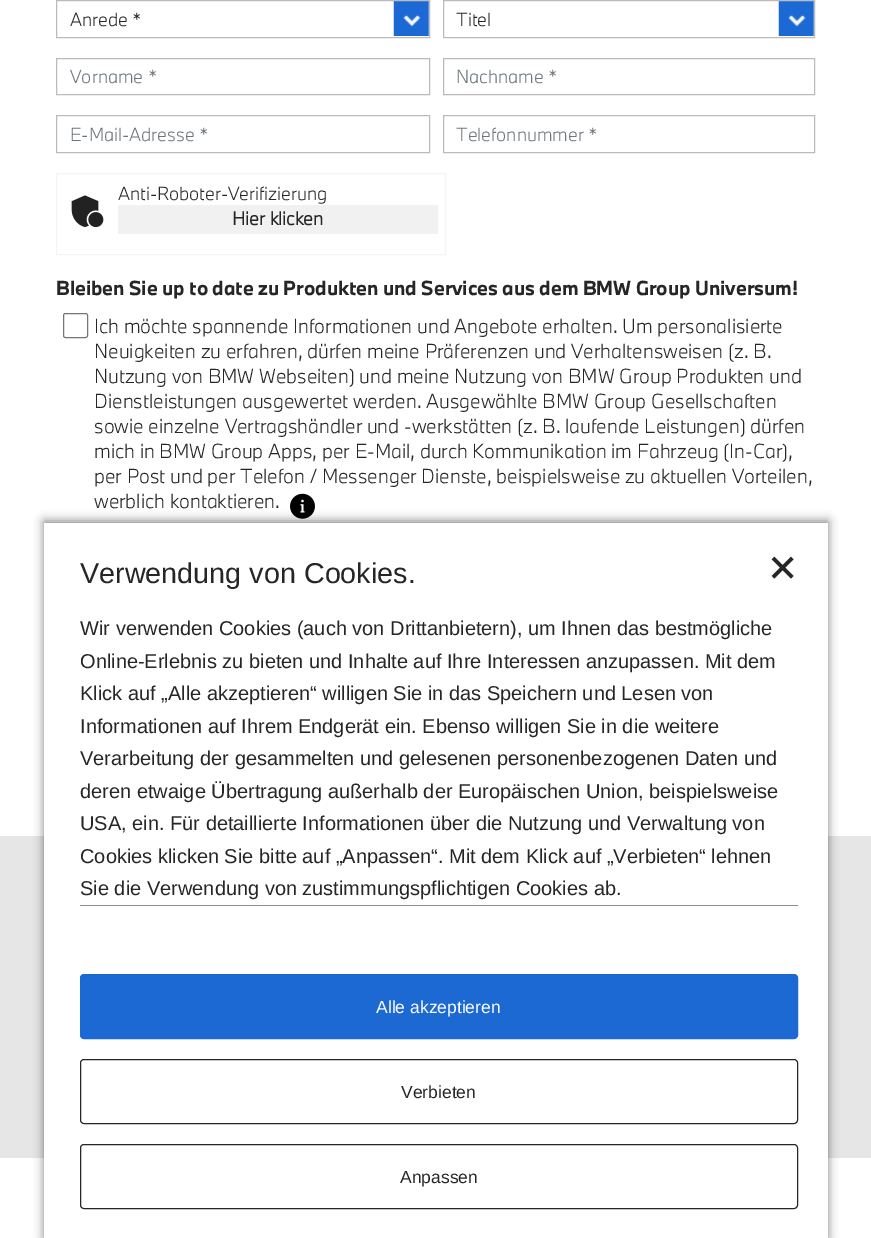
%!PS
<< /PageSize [871 1238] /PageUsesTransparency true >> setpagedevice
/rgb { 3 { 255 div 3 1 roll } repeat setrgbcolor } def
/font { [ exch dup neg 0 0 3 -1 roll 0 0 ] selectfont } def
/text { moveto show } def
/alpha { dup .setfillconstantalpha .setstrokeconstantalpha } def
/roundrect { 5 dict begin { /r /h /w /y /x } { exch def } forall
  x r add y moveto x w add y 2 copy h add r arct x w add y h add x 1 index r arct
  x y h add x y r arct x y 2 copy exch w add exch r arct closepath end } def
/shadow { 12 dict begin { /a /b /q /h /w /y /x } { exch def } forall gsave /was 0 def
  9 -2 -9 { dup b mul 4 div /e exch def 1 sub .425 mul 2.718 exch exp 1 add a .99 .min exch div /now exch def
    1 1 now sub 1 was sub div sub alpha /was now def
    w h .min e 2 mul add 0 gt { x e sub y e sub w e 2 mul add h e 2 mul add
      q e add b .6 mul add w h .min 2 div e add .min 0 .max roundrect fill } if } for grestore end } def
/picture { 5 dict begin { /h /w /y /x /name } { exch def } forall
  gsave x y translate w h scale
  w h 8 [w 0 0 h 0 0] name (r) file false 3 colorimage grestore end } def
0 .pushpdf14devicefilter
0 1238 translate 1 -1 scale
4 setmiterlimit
255 255 255 rgb
0 0 871 1238 rectfill
(img_01.rgb) 393 1 36 35 picture
187 187 187 rgb
56.5 0.5 373 37 rectstroke
(img_01.rgb) 778 1 36 35 picture
443.5 0.5 371 37 rectstroke
56.5 58.5 373 36 rectstroke
443.5 58.5 371 36 rectstroke
56.5 115.5 373 37 rectstroke
443.5 115.5 371 37 rectstroke
244 244 244 rgb
56.5 173.5 389 81 rectstroke
(img_02.rgb) 71 195 33 33 picture
241 241 241 rgb
118 205 320 29 rectfill
118 118 118 rgb
63.5 313.5 24 24 2 roundrect stroke
(img_03.rgb) 290 493 25 26 picture
230 230 230 rgb
0 836 871 322 rectfill
0 0 0 rgb
44 521 784 717 0 5 0.5 shadow
255 255 255 rgb
44 523 784 715 rectfill
(img_04.rgb) 771 556 23 23 picture
142 142 142 rgb
80 905 718 1 rectfill
28 105 212 rgb
80.5 974.5 717 64 3.5 roundrect gsave fill grestore
stroke
38 38 38 rgb
80.5 1059.5 717 64 3.5 roundrect stroke
80.5 1144.5 717 64 3.5 roundrect stroke
/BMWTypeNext-Light 17.5 font
(Anrede *) 70 26 text
(Titel) 456 26 text
108 117 125 rgb
(Vorname *) 70 83 text
(Nachname *) 456 83 text
(E-Mail-Adresse *) 70 141 text
(Telefonnummer *) 456 141 text
38 38 38 rgb
(Anti-Roboter-Verifizierung) 118 200 text
/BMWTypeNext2-Bold 17.5 font
(Hier klicken) 232 225 text
/BMWTypeNext-Bold 18.75 font
(Bleiben Sie up to date zu Produkten und Services aus dem BMW Group Universum!) 56 295 text
/BMWTypeNext-Light 18.75 font
(Ich möchte spannende Informationen und Angebote erhalten. Um personalisierte) 94 333 text
(Neuigkeiten zu erfahren, dürfen meine Präferenzen und Verhaltensweisen \(z. B.) 94 358 text
(Nutzung von BMW Webseiten\) und meine Nutzung von BMW Group Produkten und) 94 383 text
(Dienstleistungen ausgewertet werden. Ausgewählte BMW Group Gesellschaften) 94 408 text
(sowie einzelne Vertragshändler und -werkstätten \(z. B. laufende Leistungen\) dürfen) 94 433 text
(mich in BMW Group Apps, per E-Mail, durch Kommunikation im Fahrzeug \(In-Car\),) 94 458 text
(per Post und per Telefon / Messenger Dienste, beispielsweise zu aktuellen Vorteilen,) 94 483 text
(werblich kontaktieren.) 94 508 text
/LiberationSans-Regular 28.75 font
(Verwendung von Cookies.) 80 583 text
/LiberationSans-Regular 20 font
(Wir verwenden Cookies \(auch von Drittanbietern\), um Ihnen das bestmögliche) 80 635 text
(Online-Erlebnis zu bieten und Inhalte auf Ihre Interessen anzupassen. Mit dem) 80 668 text
(Klick auf „Alle akzeptieren“ willigen Sie in das Speichern und Lesen von) 80 700 text
(Informationen auf Ihrem Endgerät ein. Ebenso willigen Sie in die weitere) 80 733 text
(Verarbeitung der gesammelten und gelesenen personenbezogenen Daten und) 80 765 text
(deren etwaige Übertragung außerhalb der Europäischen Union, beispielsweise) 80 798 text
(USA, ein. Für detaillierte Informationen über die Nutzung und Verwaltung von) 80 830 text
(Cookies klicken Sie bitte auf „Anpassen“. Mit dem Klick auf „Verbieten“ lehnen) 80 863 text
(Sie die Verwendung von zustimmungspflichtigen Cookies ab.) 80 895 text
/LiberationSans-Regular 17.5 font
255 255 255 rgb
(Alle akzeptieren) 376 1013 text
38 38 38 rgb
(Verbieten) 401 1098 text
(Anpassen) 400 1183 text
.poppdf14devicefilter showpage
